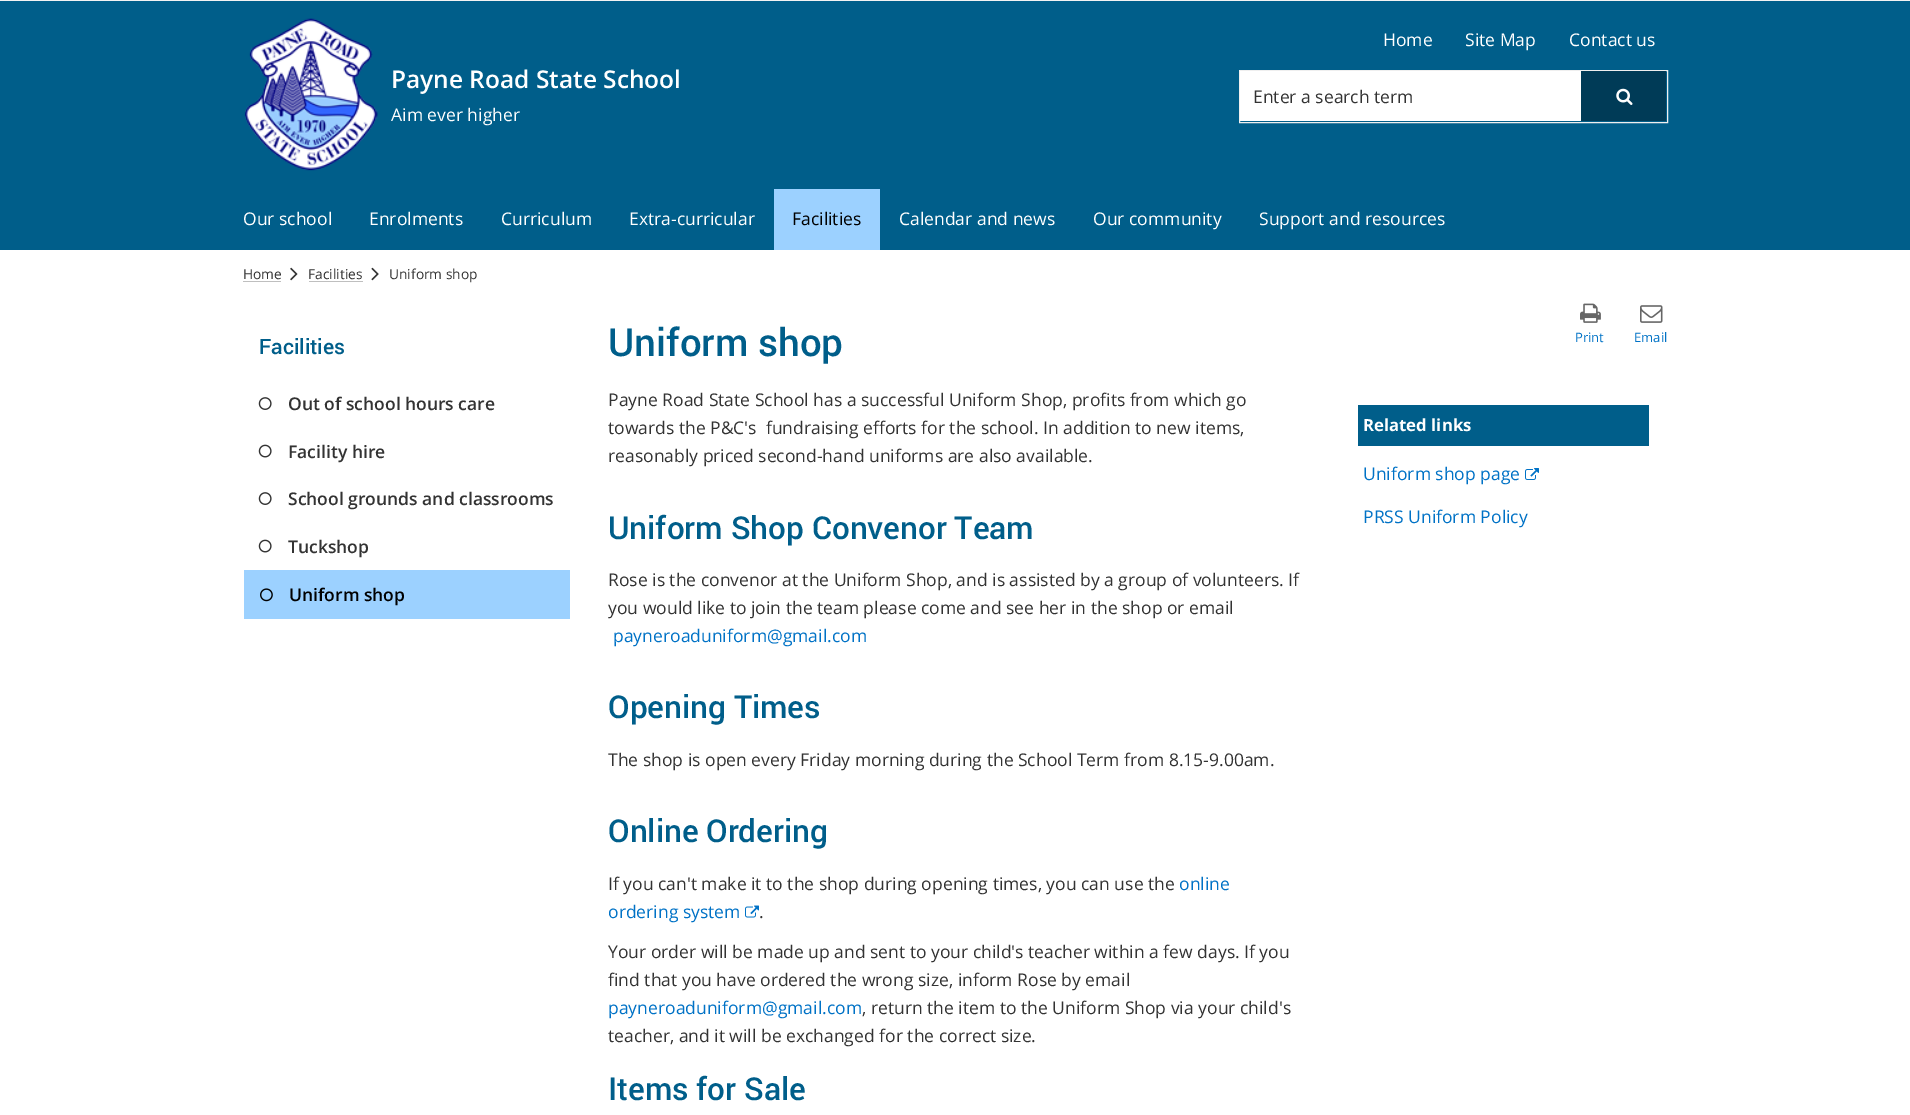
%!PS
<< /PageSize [1910 1115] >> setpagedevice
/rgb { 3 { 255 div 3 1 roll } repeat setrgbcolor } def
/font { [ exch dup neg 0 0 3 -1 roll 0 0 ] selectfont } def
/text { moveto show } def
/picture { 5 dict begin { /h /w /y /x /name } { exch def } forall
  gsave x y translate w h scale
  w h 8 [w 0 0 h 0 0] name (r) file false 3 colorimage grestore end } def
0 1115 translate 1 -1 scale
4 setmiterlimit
255 255 255 rgb
0 0 1910 1115 rectfill
243 243 243 rgb
0 0 1910 1 rectfill
0 94 138 rgb
0 1 1910 249 rectfill
(img_01.rgb) 244 18 134 153 picture
239 239 239 rgb
1239.5 70.5 428 52 rectstroke
255 255 255 rgb
1240 71 341 50 rectfill
0 59 87 rgb
1581 71 85 50 rectfill
(img_02.rgb) 1616 88 17 17 picture
156 209 255 rgb
774 189 106 61 rectfill
191 191 191 rgb
243 281 38 1 rectfill
(img_03.rgb) 290 267 8 14 picture
309 281 54 1 rectfill
(img_04.rgb) 371 267 8 14 picture
(img_05.rgb) 258 397 14 13 picture
(img_06.rgb) 258 444 14 14 picture
(img_05.rgb) 258 492 14 13 picture
(img_06.rgb) 258 539 14 14 picture
156 209 255 rgb
244 570 326 49 rectfill
(img_07.rgb) 260 588 13 14 picture
(img_08.rgb) 1580 303 21 20 picture
(img_09.rgb) 1640 305 23 18 picture
(img_10.rgb) 745 905 14 13 picture
0 94 138 rgb
1358 405 291 41 rectfill
(img_11.rgb) 1525 468 14 12 picture
/OpenSans-SemiBold 24.5 font
255 255 255 rgb
(Payne Road State School) 391 88 text
/OpenSans-Regular 17.5 font
(Aim ever higher) 391 121 text
(Home) 1383 46 text
(Site Map) 1465 46 text
(Contact us) 1569 46 text
51 51 51 rgb
(Enter a search term) 1253 103 text
255 255 255 rgb
(Our school) 243 225 text
(Enrolments) 369 225 text
(Curriculum) 501 225 text
(Extra-curricular) 629 225 text
0 0 0 rgb
(Facilities) 792 225 text
255 255 255 rgb
(Calendar and news) 899 225 text
(Our community) 1093 225 text
(Support and resources) 1259 225 text
/OpenSans-Regular 13.75 font
51 51 51 rgb
(Home) 243 279 text
(Facilities) 308 279 text
(Uniform shop) 389 279 text
/Roboto-Medium 21 font
0 94 138 rgb
(Facilities) 259 354 text
/OpenSans-SemiBold 17.5 font
51 51 51 rgb
(Out of school hours care) 288 410 text
(Facility hire) 288 458 text
(School grounds and classrooms) 288 505 text
(Tuckshop) 288 553 text
0 0 0 rgb
(Uniform shop) 289 601 text
/Roboto-Medium 38.5 font
0 94 138 rgb
(Uniform shop) 608 356 text
/OpenSans-Regular 13 font
0 114 198 rgb
(Print) 1575 342 text
(Email) 1634 342 text
/OpenSans-Regular 17.5 font
51 51 51 rgb
(Payne Road State School has a successful Uniform Shop, profits from which go) 608 406 text
(towards the P&C's  fundraising efforts for the school. In addition to new items,) 608 434 text
(reasonably priced second-hand uniforms are also available.) 608 462 text
/Roboto-Medium 31.5 font
0 94 138 rgb
(Uniform Shop Convenor Team) 608 539 text
/OpenSans-Regular 17.5 font
51 51 51 rgb
(Rose is the convenor at the Uniform Shop, and is assisted by a group of volunteers. If) 608 586 text
(you would like to join the team please come and see her in the shop or email) 608 614 text
0 114 198 rgb
(payneroaduniform@gmail.com) 613 642 text
/Roboto-Medium 31.5 font
0 94 138 rgb
(Opening Times) 608 718 text
/OpenSans-Regular 17.5 font
51 51 51 rgb
(The shop is open every Friday morning during the School Term from 8.15-9.00am.) 608 766 text
/Roboto-Medium 31.5 font
0 94 138 rgb
(Online Ordering) 608 842 text
/OpenSans-Regular 17.5 font
51 51 51 rgb
(If you can't make it to the shop during opening times, you can use the) 608 890 text
0 114 198 rgb
(online) 1179 890 text
(ordering system) 608 918 text
51 51 51 rgb
(.) 759 918 text
(Your order will be made up and sent to your child's teacher within a few days. If you) 608 958 text
(find that you have ordered the wrong size, inform Rose by email) 608 986 text
0 114 198 rgb
(payneroaduniform@gmail.com) 608 1014 text
51 51 51 rgb
(, return the item to the Uniform Shop via your child's) 862 1014 text
(teacher, and it will be exchanged for the correct size.) 608 1042 text
/Roboto-Medium 31.5 font
0 94 138 rgb
(Items for Sale) 608 1100 text
/OpenSans-Bold 16.75 font
255 255 255 rgb
(Related links) 1363 431 text
/OpenSans-Regular 17.5 font
0 114 198 rgb
(Uniform shop page) 1363 480 text
(PRSS Uniform Policy) 1363 523 text
showpage
